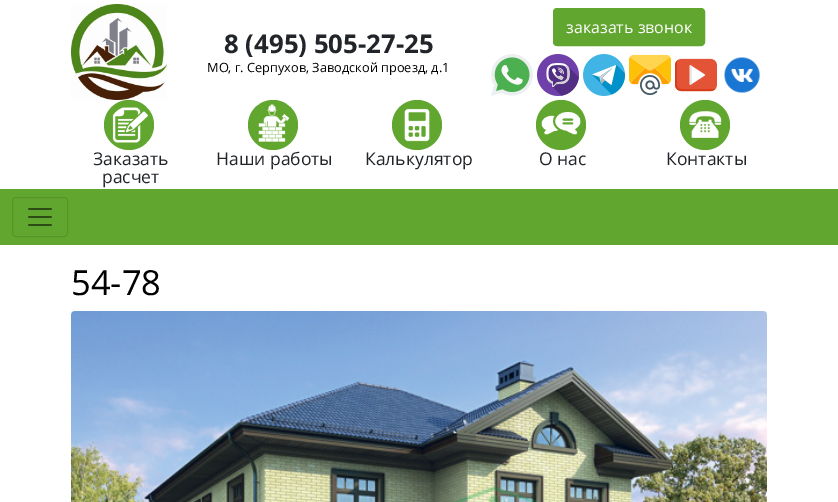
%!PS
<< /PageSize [838 502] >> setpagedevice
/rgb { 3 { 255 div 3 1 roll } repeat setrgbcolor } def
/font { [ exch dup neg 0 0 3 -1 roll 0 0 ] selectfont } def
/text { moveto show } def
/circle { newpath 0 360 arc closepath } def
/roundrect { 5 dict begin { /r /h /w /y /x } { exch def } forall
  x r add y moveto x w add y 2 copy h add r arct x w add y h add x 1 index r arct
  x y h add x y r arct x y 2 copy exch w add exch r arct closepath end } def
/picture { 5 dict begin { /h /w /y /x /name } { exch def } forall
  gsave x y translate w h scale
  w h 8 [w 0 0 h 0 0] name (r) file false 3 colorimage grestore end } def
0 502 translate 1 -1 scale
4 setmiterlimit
255 255 255 rgb
0 0 838 502 rectfill
(img_01.rgb) 71 4 96 96 picture
97 166 46 rgb
553.5 8.5 151 37 3.5 roundrect gsave fill grestore
stroke
(img_02.rgb) 491 54 42 42 picture
(img_03.rgb) 537 54 42 42 picture
(img_04.rgb) 583 54 42 42 picture
(img_05.rgb) 629 54 42 42 picture
(img_06.rgb) 675 58 42 34 picture
(img_07.rgb) 724 57 36 36 picture
129 125 25 circle fill
(img_08.rgb) 112 107 36 36 picture
273 125 25 circle fill
(img_09.rgb) 258 104 32 38 picture
417 125 25 circle fill
(img_10.rgb) 404 108 26 34 picture
561 125 25 circle fill
(img_11.rgb) 541 112 40 23 picture
705 125 25 circle fill
(img_12.rgb) 689 111 33 27 picture
0 189 838 56 rectfill
87 149 41 rgb
12.5 197.5 55 39 3.5 roundrect stroke
(img_13.rgb) 28 208 24 18 picture
(img_14.rgb) 71 311 696 191 picture
/OpenSans-Regular 16 font
255 255 255 rgb
(заказать звонок) 566 33 text
/OpenSans-Bold 25.75 font
33 37 41 rgb
(8 \(495\) 505-27-25) 224 53 text
/OpenSans-Regular 12.75 font
0 0 0 rgb
(МО, г. Серпухов, Заводской проезд, д.1) 207 72 text
/OpenSans-Regular 17.5 font
33 37 41 rgb
(Заказать) 93 165 text
(расчет) 102 183 text
(Наши работы) 216 165 text
(Калькулятор) 365 165 text
(О нас) 539 165 text
(Контакты) 666 165 text
/OpenSans-Regular 34.5 font
0 0 0 rgb
(54-78) 71 295 text
showpage
